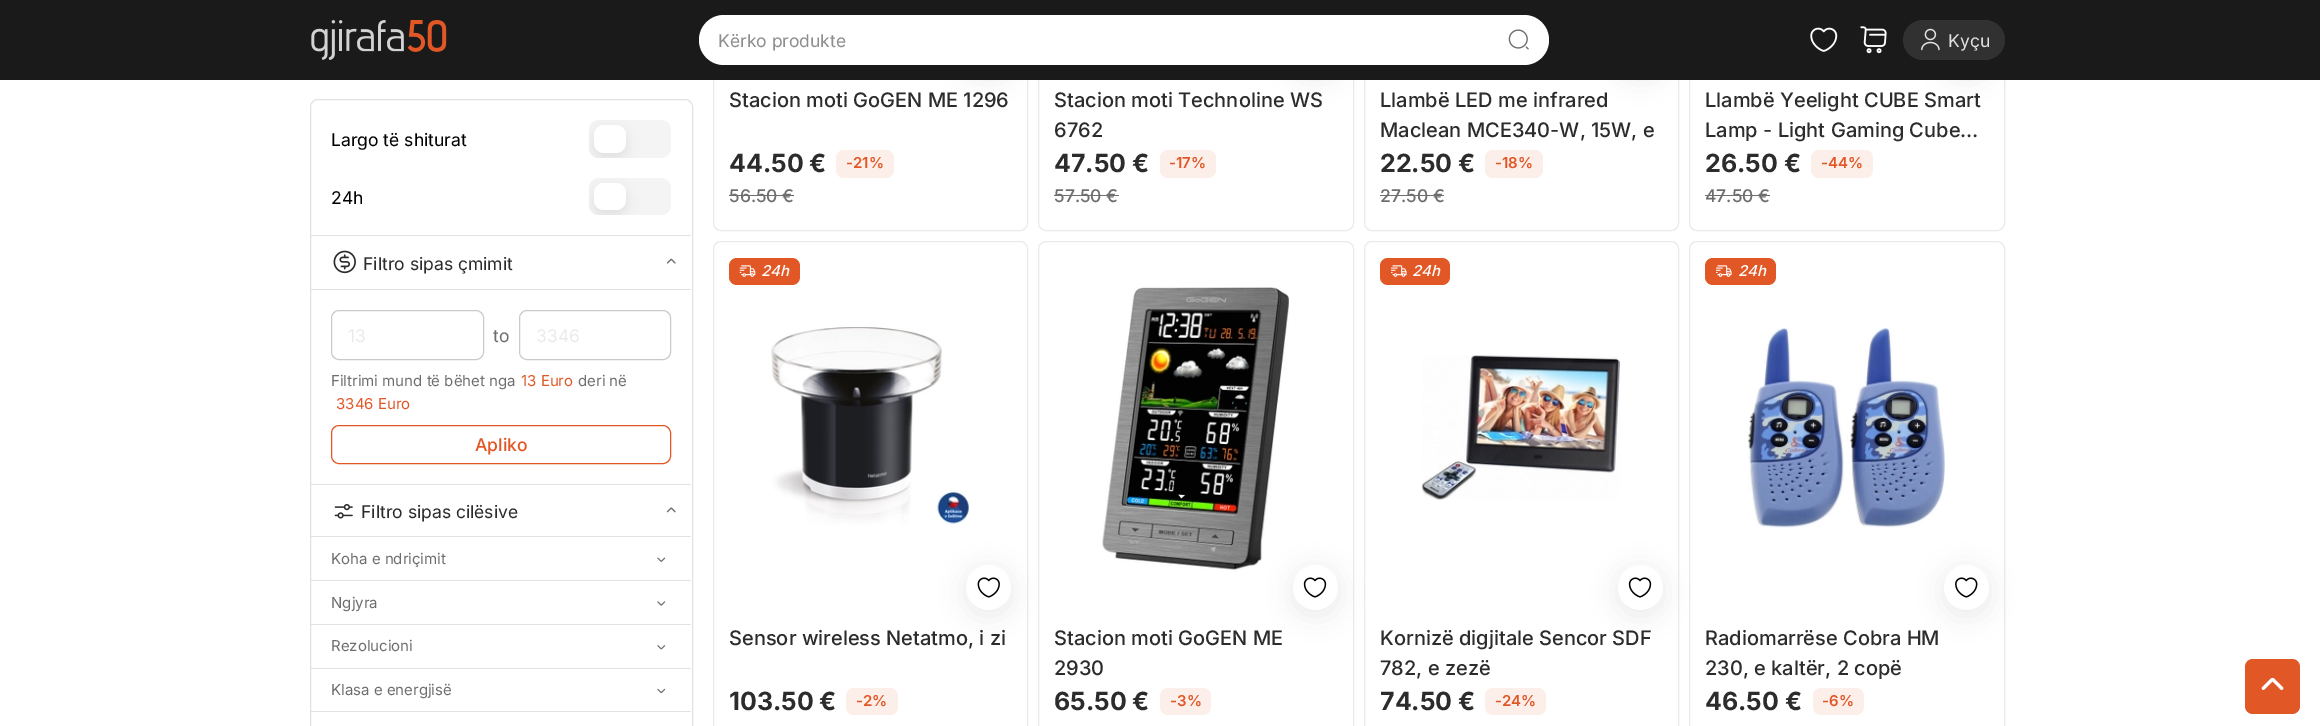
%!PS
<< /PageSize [2320 726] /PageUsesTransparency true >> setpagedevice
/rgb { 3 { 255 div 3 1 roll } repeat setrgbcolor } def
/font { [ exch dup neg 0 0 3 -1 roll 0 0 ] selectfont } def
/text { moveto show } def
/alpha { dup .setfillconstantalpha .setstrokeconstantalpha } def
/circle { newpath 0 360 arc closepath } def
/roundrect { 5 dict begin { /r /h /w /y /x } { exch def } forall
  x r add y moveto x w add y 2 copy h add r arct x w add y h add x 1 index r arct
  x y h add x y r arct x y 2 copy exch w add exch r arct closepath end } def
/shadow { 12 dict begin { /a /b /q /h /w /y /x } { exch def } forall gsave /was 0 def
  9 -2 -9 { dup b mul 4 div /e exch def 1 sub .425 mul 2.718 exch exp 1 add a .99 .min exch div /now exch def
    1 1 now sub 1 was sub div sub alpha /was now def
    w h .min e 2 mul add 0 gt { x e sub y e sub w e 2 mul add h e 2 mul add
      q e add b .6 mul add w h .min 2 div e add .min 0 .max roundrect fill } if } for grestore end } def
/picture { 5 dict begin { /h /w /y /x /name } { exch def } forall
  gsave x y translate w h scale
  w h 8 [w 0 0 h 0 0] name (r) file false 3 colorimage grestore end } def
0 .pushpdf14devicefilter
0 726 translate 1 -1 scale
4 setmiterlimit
255 255 255 rgb
0 0 2320 726 rectfill
234 234 234 rgb
713.5 -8.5 314 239 7.5 roundrect stroke
1038.5 -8.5 315 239 7.5 roundrect stroke
44 44 44 rgb
966 33 45 45 22.5 12.5 0.1 shadow
234 234 234 rgb
1364.5 -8.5 314 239 7.5 roundrect stroke
44 44 44 rgb
1293 33 45 45 22.5 12.5 0.1 shadow
234 234 234 rgb
1689.5 -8.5 315 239 7.5 roundrect stroke
44 44 44 rgb
1618 33 45 45 22.5 12.5 0.1 shadow
1944 33 45 45 22.5 12.5 0.1 shadow
26 26 26 rgb
0 0 2320 80 rectfill
(img_01.rgb) 311 20 136 40 picture
255 255 255 rgb
699 15 850 50 25 roundrect fill
(img_02.rgb) 1508 29 21 21 picture
(img_03.rgb) 1810 27 28 25 picture
(img_04.rgb) 1860 26 27 28 picture
49 49 49 rgb
1903 20 102 40 20 roundrect fill
(img_05.rgb) 1921 28 19 23 picture
226 226 226 rgb
310.5 99.5 382 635 7.5 roundrect stroke
311 235 380 1 rectfill
244 244 244 rgb
589 120 82 38 10 roundrect fill
gsave
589 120 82 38 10 roundrect clip newpath
44 44 44 rgb
594 130 32 28 10 6 0.1 shadow
grestore
255 255 255 rgb
594 125 32 28 10 roundrect fill
244 244 244 rgb
589 178 82 37 10 roundrect fill
gsave
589 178 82 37 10 roundrect clip newpath
44 44 44 rgb
594 188 32 27 10 6 0.1 shadow
grestore
255 255 255 rgb
594 183 32 27 10 roundrect fill
226 226 226 rgb
311 289 380 1 rectfill
(img_06.rgb) 333 250 23 24 picture
(img_07.rgb) 666 258 10 6 picture
311 484 380 1 rectfill
202 202 202 rgb
331.5 310.5 152 49 7.5 roundrect stroke
519.5 310.5 151 49 7.5 roundrect stroke
225 87 38 rgb
331.5 425.5 339 38 7.5 roundrect stroke
226 226 226 rgb
311 536 380 1 rectfill
(img_08.rgb) 334 504 19 15 picture
(img_09.rgb) 666 507 10 6 picture
311 580 380 1 rectfill
(img_10.rgb) 657 557 9 5 picture
311 624 380 1 rectfill
(img_11.rgb) 657 601 9 5 picture
311 668 380 1 rectfill
(img_12.rgb) 657 645 9 5 picture
311 711 380 1 rectfill
(img_13.rgb) 657 688 9 6 picture
110 110 110 rgb
729 195 65 1 rectfill
252 238 233 rgb
836 150 58 28 8 roundrect fill
110 110 110 rgb
1054 195 65 1 rectfill
252 238 233 rgb
1160 150 56 28 8 roundrect fill
110 110 110 rgb
1380 195 64 1 rectfill
252 238 233 rgb
1485 150 58 28 8 roundrect fill
110 110 110 rgb
1705 195 65 1 rectfill
252 238 233 rgb
1811 150 62 28 8 roundrect fill
234 234 234 rgb
713.5 241.5 314 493 7.5 roundrect stroke
225 87 38 rgb
729 258 71 27 8 roundrect fill
(img_14.rgb) 739 265 17 12 picture
(img_15.rgb) 771 327 198 198 picture
234 234 234 rgb
1038.5 241.5 315 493 7.5 roundrect stroke
44 44 44 rgb
966 570 45 45 22.5 12.5 0.1 shadow
255 255 255 rgb
988.5 587.5 22.5 circle fill
(img_16.rgb) 977 577 23 21 picture
252 238 233 rgb
846 688 52 27 8 roundrect fill
(img_17.rgb) 1102 287 187 283 picture
234 234 234 rgb
1364.5 241.5 314 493 7.5 roundrect stroke
44 44 44 rgb
1293 570 45 45 22.5 12.5 0.1 shadow
255 255 255 rgb
1315.5 587.5 22.5 circle fill
(img_18.rgb) 1303 577 24 21 picture
252 238 233 rgb
1160 688 51 27 8 roundrect fill
225 87 38 rgb
1380 258 70 27 8 roundrect fill
(img_19.rgb) 1391 265 16 12 picture
(img_20.rgb) 1422 355 198 145 picture
234 234 234 rgb
1689.5 241.5 315 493 7.5 roundrect stroke
44 44 44 rgb
1618 570 45 45 22.5 12.5 0.1 shadow
255 255 255 rgb
1640.5 587.5 22.5 circle fill
(img_18.rgb) 1628 577 24 21 picture
252 238 233 rgb
1485 688 61 27 8 roundrect fill
225 87 38 rgb
1705 258 71 27 8 roundrect fill
(img_19.rgb) 1716 265 16 12 picture
(img_21.rgb) 1747 328 198 200 picture
44 44 44 rgb
1944 570 45 45 22.5 12.5 0.1 shadow
255 255 255 rgb
1966.5 587.5 22.5 circle fill
(img_22.rgb) 1955 577 23 21 picture
252 238 233 rgb
1813 688 51 27 8 roundrect fill
225 87 38 rgb
2245 659 55 55 8 roundrect fill
(img_23.rgb) 2261 677 23 13 picture
/Inter-Regular 17.5 font
142 142 142 rgb
(Kërko produkte) 718 47 text
226 226 226 rgb
(Kyçu) 1948 47 text
0 0 0 rgb
(Largo të shiturat) 331 146 text
(24h) 331 204 text
44 44 44 rgb
(Filtro sipas çmimit) 363 270 text
234 234 234 rgb
(13) 348 342 text
110 110 110 rgb
(to) 493 342 text
234 234 234 rgb
(3346) 536 342 text
/Inter-Regular 15 font
110 110 110 rgb
(Filtrimi mund të bëhet nga) 331 386 text
225 87 38 rgb
(13 Euro) 521 386 text
110 110 110 rgb
(deri në) 578 386 text
225 87 38 rgb
(3346 Euro) 336 409 text
/Inter-Medium 17.5 font
(Apliko) 475 451 text
/Inter-Regular 17.5 font
44 44 44 rgb
(Filtro sipas cilësive) 361 518 text
/Inter-Regular 15 font
110 110 110 rgb
(Koha e ndriçimit) 331 564 text
(Ngjyra) 331 608 text
(Rezolucioni) 331 651 text
(Klasa e energjisë) 331 695 text
/Inter-Medium 20 font
44 44 44 rgb
(Stacion moti GoGEN ME 1296) 729 107 text
/Inter-Bold 25 font
(44.50 €) 729 172 text
/Inter-Medium 17.5 font
110 110 110 rgb
(56.50 €) 729 202 text
/Inter-SemiBold 15 font
225 87 38 rgb
(-21%) 846 168 text
/Inter-Medium 20 font
44 44 44 rgb
(Stacion moti Technoline WS) 1054 107 text
(6762) 1054 137 text
/Inter-Bold 25 font
(47.50 €) 1054 172 text
/Inter-Medium 17.5 font
110 110 110 rgb
(57.50 €) 1054 202 text
/Inter-SemiBold 15 font
225 87 38 rgb
(-17%) 1169 168 text
/Inter-Medium 20 font
44 44 44 rgb
(Llambë LED me infrared) 1380 107 text
(Maclean MCE340-W, 15W, e) 1380 137 text
/Inter-Bold 25 font
(22.50 €) 1380 172 text
/Inter-Medium 17.5 font
110 110 110 rgb
(27.50 €) 1380 202 text
/Inter-SemiBold 15 font
225 87 38 rgb
(-18%) 1495 168 text
/Inter-Medium 20 font
44 44 44 rgb
(Llambë Yeelight CUBE Smart) 1705 107 text
(Lamp - Light Gaming Cube…) 1705 137 text
/Inter-Bold 25 font
(26.50 €) 1705 172 text
/Inter-Medium 17.5 font
110 110 110 rgb
(47.50 €) 1705 202 text
/Inter-SemiBold 15 font
225 87 38 rgb
(-44%) 1821 168 text
/Inter-MediumItalic 15 font
255 255 255 rgb
(24h) 761 276 text
/Inter-Medium 20 font
44 44 44 rgb
(Sensor wireless Netatmo, i zi) 729 645 text
/Inter-Bold 25 font
(103.50 €) 729 710 text
/Inter-SemiBold 15 font
225 87 38 rgb
(-2%) 856 706 text
/Inter-Medium 20 font
44 44 44 rgb
(Stacion moti GoGEN ME) 1054 645 text
(2930) 1054 675 text
/Inter-Bold 25 font
(65.50 €) 1054 710 text
/Inter-SemiBold 15 font
225 87 38 rgb
(-3%) 1170 706 text
/Inter-MediumItalic 15 font
255 255 255 rgb
(24h) 1412 276 text
/Inter-Medium 20 font
44 44 44 rgb
(Kornizë digjitale Sencor SDF) 1380 645 text
(782, e zezë) 1380 675 text
/Inter-Bold 25 font
(74.50 €) 1380 710 text
/Inter-SemiBold 15 font
225 87 38 rgb
(-24%) 1495 706 text
/Inter-MediumItalic 15 font
255 255 255 rgb
(24h) 1738 276 text
/Inter-Medium 20 font
44 44 44 rgb
(Radiomarrëse Cobra HM) 1705 645 text
(230, e kaltër, 2 copë) 1705 675 text
/Inter-Bold 25 font
(46.50 €) 1705 710 text
/Inter-SemiBold 15 font
225 87 38 rgb
(-6%) 1822 706 text
.poppdf14devicefilter showpage
